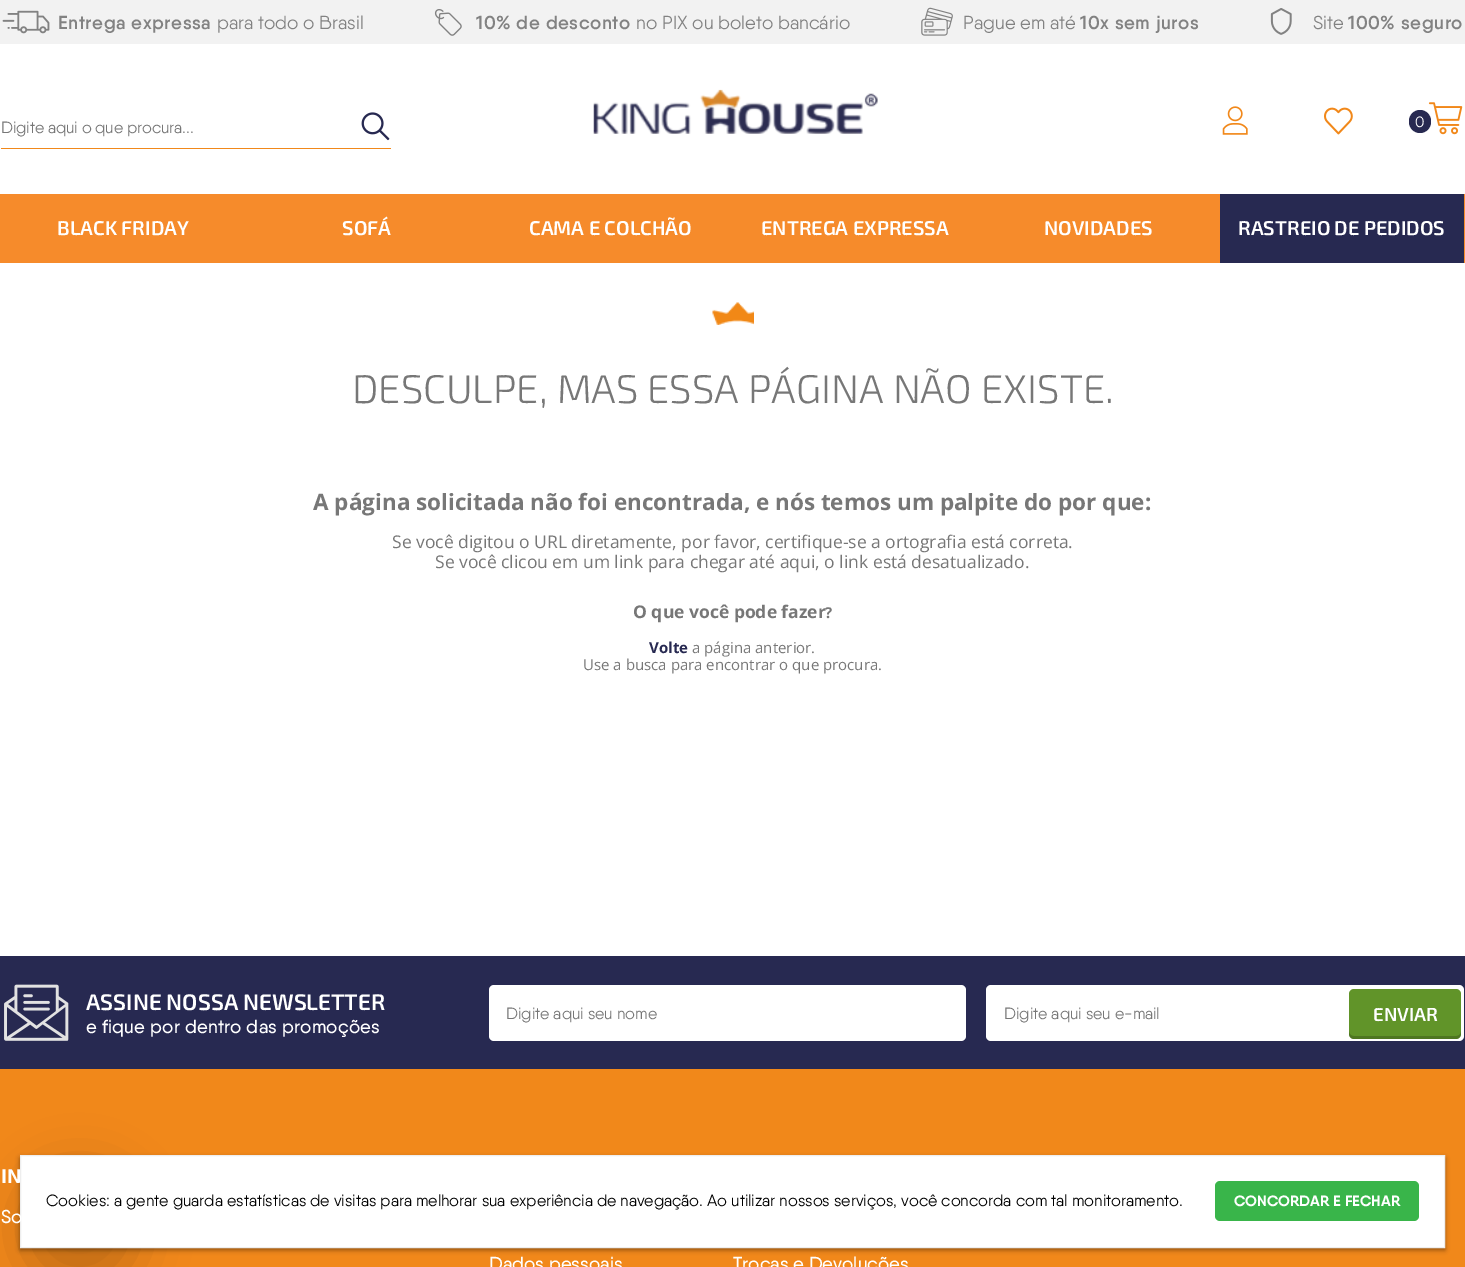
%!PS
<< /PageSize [1465 1267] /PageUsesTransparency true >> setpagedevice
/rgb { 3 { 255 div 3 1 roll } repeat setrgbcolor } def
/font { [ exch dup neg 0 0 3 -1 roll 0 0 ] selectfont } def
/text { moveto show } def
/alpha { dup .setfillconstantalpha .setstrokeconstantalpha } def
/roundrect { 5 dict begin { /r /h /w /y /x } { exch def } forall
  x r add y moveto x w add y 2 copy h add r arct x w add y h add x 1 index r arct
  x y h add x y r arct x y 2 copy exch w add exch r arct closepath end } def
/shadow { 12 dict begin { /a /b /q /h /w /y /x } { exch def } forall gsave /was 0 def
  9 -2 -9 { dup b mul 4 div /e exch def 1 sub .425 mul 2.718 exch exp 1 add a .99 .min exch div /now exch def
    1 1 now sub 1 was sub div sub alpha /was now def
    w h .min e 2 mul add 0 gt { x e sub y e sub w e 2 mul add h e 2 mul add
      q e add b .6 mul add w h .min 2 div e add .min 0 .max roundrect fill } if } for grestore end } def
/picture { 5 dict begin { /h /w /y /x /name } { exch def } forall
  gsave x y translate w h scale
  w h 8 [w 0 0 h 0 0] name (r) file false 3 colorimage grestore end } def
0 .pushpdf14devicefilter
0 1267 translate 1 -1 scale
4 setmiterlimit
255 255 255 rgb
0 0 1465 1267 rectfill
242 242 242 rgb
0 0 1465 44 rectfill
(img_01.rgb) 2 10 48 24 picture
(img_02.rgb) 434 9 28 27 picture
(img_03.rgb) 921 7 32 29 picture
(img_04.rgb) 1270 8 22 27 picture
241 136 26 rgb
1 148 390 1 rectfill
(img_05.rgb) 361 112 29 29 picture
(img_06.rgb) 593 89 285 45 picture
(img_07.rgb) 1222 106 26 29 picture
(img_08.rgb) 1324 107 29 28 picture
(img_09.rgb) 1428 102 35 33 picture
39 41 81 rgb
1409 110 22 23 11 roundrect fill
246 139 43 rgb
0 194 1465 69 rectfill
39 41 81 rgb
1220 194 244 69 rectfill
(img_10.rgb) 712 302 42 23 picture
241 136 26 rgb
0 1069 1465 198 rectfill
0 0 0 rgb
20 1158 1425 92 0 2.5 0.4 shadow
21 1170 117 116 58 25.5 0.18 shadow
255 255 255 rgb
20.5 1155.5 moveto 1424 0 rlineto 0 92 rlineto -1424 0 rlineto closepath gsave fill grestore
238 238 238 rgb
stroke
57 181 74 rgb
1215 1181 204 40 5 roundrect fill
39 41 81 rgb
0 956 1465 113 rectfill
(img_11.rgb) 4 984 65 57 picture
255 255 255 rgb
489 985 477 56 5 roundrect fill
986 985 478 56 5 roundrect fill
97 148 41 rgb
1349 989 112 50 5 roundrect fill
0.2 alpha
0 0 0 rgb
1349 1031 moveto 0 3 rlineto 0 3 2 5 5 5 rcurveto 102 0 rlineto 3 0 5 -2 5 -5 rcurveto 0 -3 rlineto 0 3 -2 5 -5 5 rcurveto -102 0 rlineto -3 0 -5 -2 -5 -5 rcurveto closepath fill
/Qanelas-SemiBold 18.75 font
1 alpha
130 130 130 rgb
58 29 moveto 0.6 0 (Entrega expressa) ashow
/Qanelas-Regular 18.75 font
(para todo o Brasil) 217 29 text
/Qanelas-SemiBold 18.75 font
476 29 moveto 0.6 0 (10% de desconto) ashow
/Qanelas-Regular 18.75 font
(no PIX ou boleto bancário) 636 29 text
(Pague em até) 963 29 text
/Qanelas-SemiBold 18.75 font
1080 29 moveto 0.6 0 (10x sem juros) ashow
/Qanelas-Regular 18.75 font
(Site) 1313 29 text
/Qanelas-SemiBold 18.75 font
1348 29 moveto 0.6 0 (100% seguro) ashow
/Qanelas-Regular 16.25 font
119 119 119 rgb
1 133 moveto -0.1 0 (Digite aqui o que procura...) ashow
/Qanelas-Regular 15 font
255 255 255 rgb
(0) 1415 127 text
/Exo2-SemiBold 20 font
(BLACK FRIDAY) 57 235 text
(SOFÁ) 342 235 text
(CAMA E COLCHÃO) 529 235 text
(ENTREGA EXPRESSA) 761 235 text
(NOVIDADES) 1044 235 text
(RASTREIO DE PEDIDOS) 1238 235 text
/Exo2-Light 40 font
119 119 119 rgb
(DESCULPE, MAS ESSA PÁGINA NÃO EXISTE.) 352 403 text
/OpenSans-Bold 22.5 font
(A página solicitada não foi encontrada, e nós temos um palpite do por que:) 313 510 text
/OpenSans-Regular 17.5 font
(Se você digitou o URL diretamente, por favor, certifique-se a ortografia está correta.) 392 548 text
(Se você clicou em um link para chegar até aqui, o link está desatualizado.) 435 568 text
/OpenSans-Bold 17.5 font
(O que você pode fazer) 633 618 text
/OpenSans-Bold 15 font
(?) 825 618 text
39 41 81 rgb
(Volte) 649 653 text
/OpenSans-Regular 15 font
119 119 119 rgb
(a página anterior.) 692 653 text
(Use a busca para encontrar o que procura.) 583 670 text
/Qanelas-Regular 16.25 font
0 0 0 rgb
(Cookies: a gente guarda estatísticas de visitas para melhorar sua experiência de navegação. Ao utilizar nossos serviços, você concorda com tal monitoramento.) 46 1206 text
/Qanelas-Bold 15 font
255 255 255 rgb
(CONCORDAR E FECHAR) 1234 1206 text
/Exo2-SemiBold 22.5 font
(ASSINE NOSSA NEWSLETTER) 86 1010 text
/Qanelas-Medium 18.75 font
86 1033 moveto 0.2 0 (e fique por dentro das promoções) ashow
/Qanelas-Regular 16.25 font
119 119 119 rgb
(Digite aqui seu nome) 506 1019 text
(Digite aqui seu e-mail) 1004 1019 text
/Exo2-SemiBold 18.75 font
255 255 255 rgb
(ENVIAR) 1373 1021 text
/Exo2-Bold 20 font
(IN) 1 1183 text
/Qanelas-Medium 18.75 font
(So) 1 1223 text
(Dados pessoais) 489 1270 text
(Trocas e Devoluções) 733 1270 text
.poppdf14devicefilter showpage
